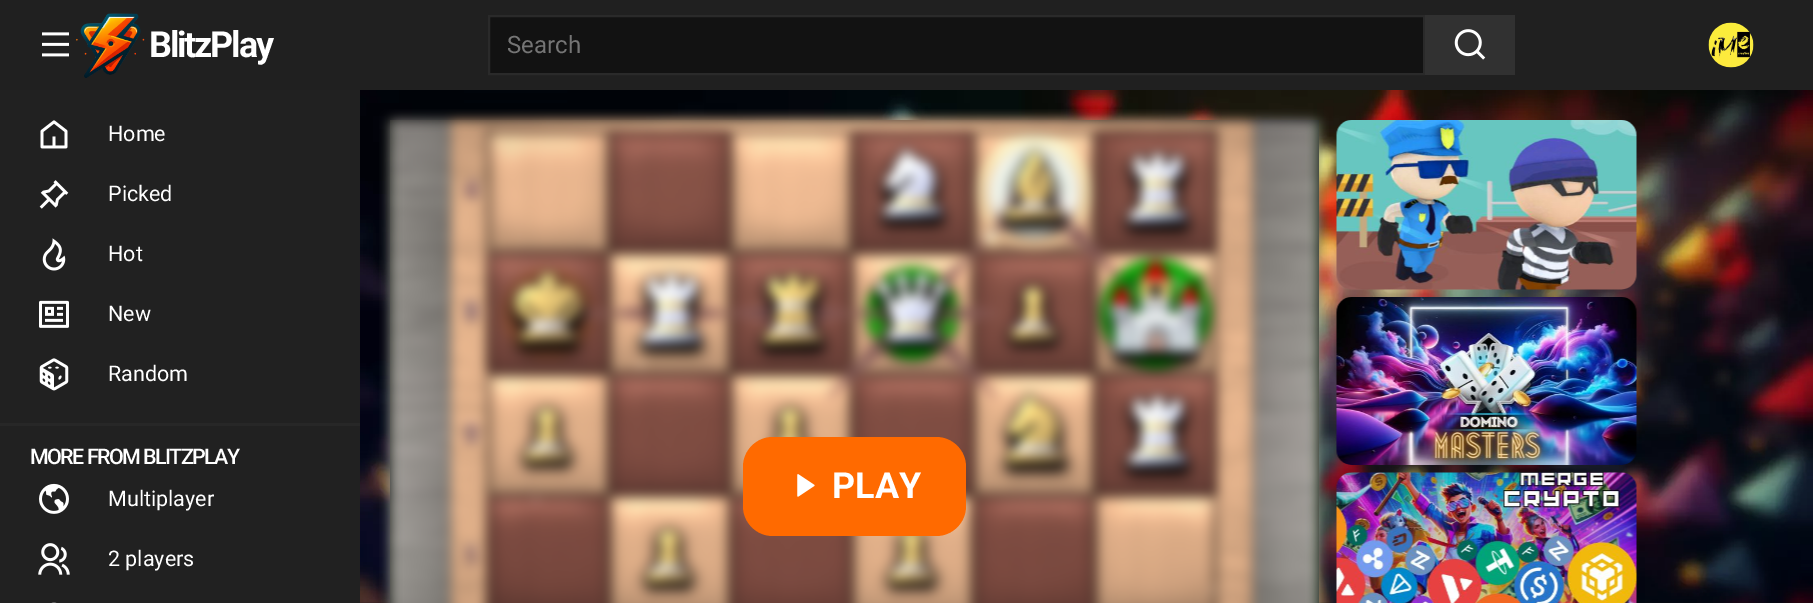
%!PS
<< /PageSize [1813 603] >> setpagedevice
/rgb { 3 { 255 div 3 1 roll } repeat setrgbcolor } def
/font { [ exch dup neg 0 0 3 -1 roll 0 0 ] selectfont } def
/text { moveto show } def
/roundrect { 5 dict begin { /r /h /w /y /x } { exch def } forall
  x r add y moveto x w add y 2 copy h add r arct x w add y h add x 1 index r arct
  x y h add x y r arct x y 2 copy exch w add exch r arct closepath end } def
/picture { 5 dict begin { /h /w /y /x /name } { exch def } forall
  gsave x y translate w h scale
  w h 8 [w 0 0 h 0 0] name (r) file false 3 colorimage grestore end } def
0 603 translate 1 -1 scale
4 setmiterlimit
255 255 255 rgb
0 0 1813 603 rectfill
32 32 32 rgb
0 0 1813 90 rectfill
(img_01.rgb) 42 32 27 25 picture
(img_02.rgb) 76 13 69 65 picture
18 18 18 rgb
489 16 moveto 935 0 rlineto 0 58 rlineto -935 0 rlineto closepath gsave fill grestore
42 42 42 rgb
2 setlinewidth
stroke
49 49 49 rgb
1425 15 90 60 rectfill
(img_03.rgb) 1454 29 32 31 picture
(img_04.rgb) 1708 22 46 46 picture
33 33 33 rgb
0 90 360 513 rectfill
(img_05.rgb) 40 120 28 29 picture
(img_06.rgb) 39 180 30 29 picture
(img_07.rgb) 42 238 24 33 picture
(img_08.rgb) 39 300 30 28 picture
(img_09.rgb) 39 358 30 33 picture
39 39 39 rgb
0 423 360 3 rectfill
(img_10.rgb) 39 483 30 31 picture
(img_11.rgb) 38 543 32 32 picture
(img_12.rgb) 51 602 6 1 picture
(img_13.rgb) 360 90 1453 513 picture
24 24 24 rgb
390 120 929 483 rectfill
(img_14.rgb) 379 109 950 494 picture
255 106 0 rgb
743 437 223 99 30 roundrect fill
(img_15.rgb) 797 474 18 23 picture
(img_16.rgb) 1336 120 301 170 picture
(img_17.rgb) 1336 297 301 168 picture
(img_18.rgb) 1336 472 301 131 picture
/Roboto-Bold 36 font
255 255 255 rgb
149 57 moveto -2.25 0 (BlitzPlay) ashow
/Roboto-Regular 24 font
117 117 117 rgb
(Search) 507 53 text
/Roboto-Regular 21.5 font
255 255 255 rgb
(Home) 108 141 text
(Picked) 108 201 text
(Hot) 108 261 text
(New) 108 321 text
(Random) 108 381 text
/Roboto-Medium 21.5 font
30 464 moveto -1.6 0 (MORE FROM BLITZPLAY) ashow
/Roboto-Regular 21.5 font
(Multiplayer) 108 506 text
(2 players) 108 566 text
/Roboto-Bold 36 font
(PLAY) 832 498 text
showpage
